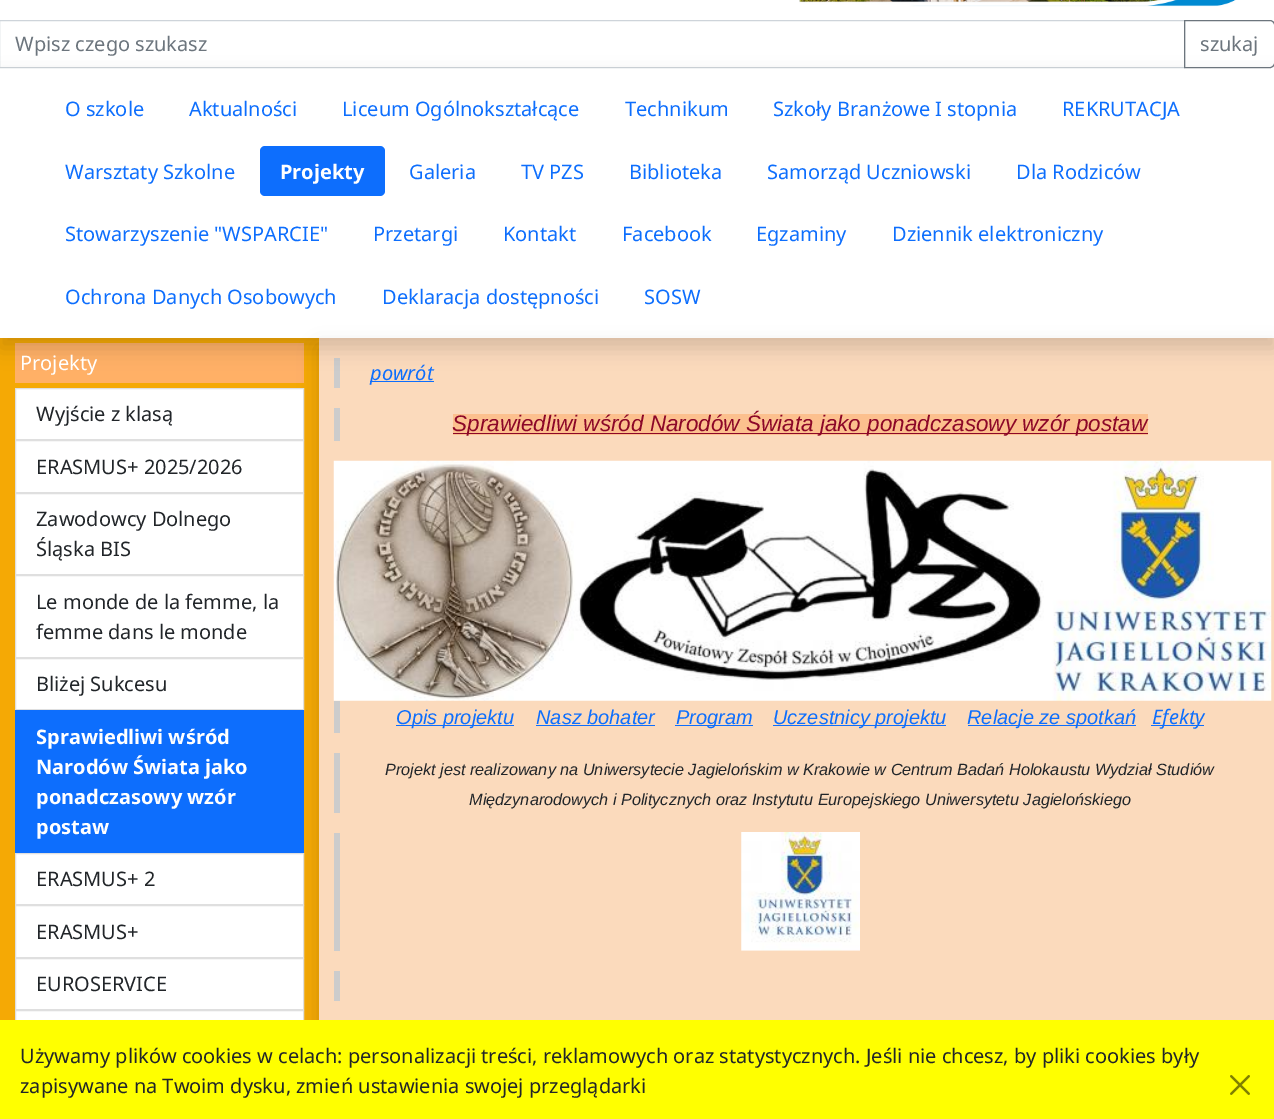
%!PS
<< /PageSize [1274 1119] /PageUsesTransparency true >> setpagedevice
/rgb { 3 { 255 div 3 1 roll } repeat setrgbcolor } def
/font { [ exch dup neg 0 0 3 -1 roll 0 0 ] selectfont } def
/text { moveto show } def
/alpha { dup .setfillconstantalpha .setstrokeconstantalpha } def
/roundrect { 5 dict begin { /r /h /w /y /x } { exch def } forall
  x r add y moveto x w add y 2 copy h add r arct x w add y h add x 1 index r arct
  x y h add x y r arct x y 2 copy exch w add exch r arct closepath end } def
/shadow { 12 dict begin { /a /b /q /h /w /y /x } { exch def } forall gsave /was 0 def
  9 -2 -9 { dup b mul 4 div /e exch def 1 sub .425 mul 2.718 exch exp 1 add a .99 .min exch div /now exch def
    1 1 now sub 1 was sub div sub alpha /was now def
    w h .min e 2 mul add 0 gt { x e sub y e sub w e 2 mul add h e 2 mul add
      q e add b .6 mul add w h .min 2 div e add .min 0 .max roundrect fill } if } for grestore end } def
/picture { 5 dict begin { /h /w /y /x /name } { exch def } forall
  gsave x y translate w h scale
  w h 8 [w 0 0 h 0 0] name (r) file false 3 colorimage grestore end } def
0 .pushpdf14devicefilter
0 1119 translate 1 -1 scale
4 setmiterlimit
255 255 255 rgb
0 0 1274 1119 rectfill
(img_01.rgb) 799 0 437 7 picture
206 212 218 rgb
-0.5 20.5 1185 47 rectstroke
245 169 5 rgb
0 338 319 682 rectfill
255 176 102 rgb
15 343 289 40 rectfill
0 0 0 rgb
319 348 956 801 0 10 0.15 shadow
251 218 188 rgb
319 338 955 682 rectfill
204 204 204 rgb
334 358 6 30 rectfill
gsave
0 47 moveto 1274 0 rlineto 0 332 rlineto -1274 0 rlineto closepath 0 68 moveto 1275 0 rlineto 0 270 rlineto -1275 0 rlineto closepath eoclip newpath
0 0 0 rgb
0 78 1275 270 0 10 0.15 shadow
grestore
108 117 125 rgb
1184.5 20.5 moveto 85.5 0 rlineto 2.5 0 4.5 2 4.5 4.5 rcurveto 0 38 rlineto 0 2.5 -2 4.5 -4.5 4.5 rcurveto -85.5 0 rlineto closepath stroke
13 110 253 rgb
260 146 125 50 5 roundrect fill
255 255 255 rgb
15.5 388.5 moveto 288 0 rlineto 0 51 rlineto -288 0 rlineto closepath gsave fill grestore
223 223 223 rgb
stroke
255 255 255 rgb
15.5 440.5 moveto 288 0 rlineto 0 52 rlineto -288 0 rlineto closepath gsave fill grestore
223 223 223 rgb
stroke
255 255 255 rgb
15.5 493.5 moveto 288 0 rlineto 0 81 rlineto -288 0 rlineto closepath gsave fill grestore
223 223 223 rgb
stroke
255 255 255 rgb
15.5 575.5 moveto 288 0 rlineto 0 82 rlineto -288 0 rlineto closepath gsave fill grestore
223 223 223 rgb
stroke
255 255 255 rgb
15.5 658.5 moveto 288 0 rlineto 0 51 rlineto -288 0 rlineto closepath gsave fill grestore
223 223 223 rgb
stroke
13 110 253 rgb
15 710 289 143 rectfill
255 255 255 rgb
15.5 853.5 moveto 288 0 rlineto 0 51 rlineto -288 0 rlineto closepath gsave fill grestore
223 223 223 rgb
stroke
255 255 255 rgb
15.5 905.5 moveto 288 0 rlineto 0 52 rlineto -288 0 rlineto closepath gsave fill grestore
223 223 223 rgb
stroke
255 255 255 rgb
15.5 958.5 moveto 288 0 rlineto 0 51 rlineto -288 0 rlineto closepath gsave fill grestore
223 223 223 rgb
stroke
255 255 255 rgb
16 1011 287 9 rectfill
223 223 223 rgb
15.5 1010.5 288 82 rectstroke
13 110 253 rgb
370 381 64 1 rectfill
204 204 204 rgb
334 408 6 33 rectfill
252 192 142 rgb
453 414 695 21 rectfill
140 7 40 rgb
453 433 695 1 rectfill
(img_02.rgb) 333 460 939 241 picture
204 204 204 rgb
334 701 6 32 rectfill
13 110 253 rgb
396 725 118 1 rectfill
536 725 119 1 rectfill
675 725 78 1 rectfill
773 725 173 1 rectfill
968 725 168 1 rectfill
1151 725 53 1 rectfill
204 204 204 rgb
334 753 6 60 rectfill
334 833 6 118 rectfill
(img_03.rgb) 741 832 119 119 picture
334 971 6 30 rectfill
255 255 0 rgb
0 1020 1274 99 rectfill
(img_04.rgb) 1230 1075 20 20 picture
/NotoSans-Regular 20 font
108 117 125 rgb
(Wpisz czego szukasz) 15 51 text
(szukaj) 1200 51 text
13 110 253 rgb
(O szkole) 65 116 text
(Aktualności) 189 116 text
(Liceum Ogólnokształcące) 342 116 text
(Technikum) 625 116 text
(Szkoły Branżowe I stopnia) 773 116 text
(REKRUTACJA) 1062 116 text
(Warsztaty Szkolne) 65 179 text
/NotoSans-Bold 20 font
255 255 255 rgb
(Projekty) 280 179 text
/NotoSans-Regular 20 font
13 110 253 rgb
(Galeria) 409 179 text
(TV PZS) 521 179 text
(Biblioteka) 629 179 text
(Samorząd Uczniowski) 767 179 text
(Dla Rodziców) 1016 179 text
(Stowarzyszenie "WSPARCIE") 65 241 text
(Przetargi) 373 241 text
(Kontakt) 503 241 text
(Facebook) 622 241 text
(Egzaminy) 756 241 text
(Dziennik elektroniczny) 892 241 text
(Ochrona Danych Osobowych) 65 304 text
(Deklaracja dostępności) 382 304 text
(SOSW) 644 304 text
255 255 255 rgb
(Projekty) 20 370 text
33 37 41 rgb
(Wyjście z klasą) 36 421 text
(ERASMUS+ 2025/2026) 36 474 text
(Zawodowcy Dolnego) 36 526 text
(Śląska BIS) 36 556 text
(Le monde de la femme, la) 36 609 text
(femme dans le monde) 36 639 text
(Bliżej Sukcesu) 36 691 text
/NotoSans-Bold 20 font
255 255 255 rgb
(Sprawiedliwi wśród) 36 744 text
(Narodów Świata jako) 36 774 text
(ponadczasowy wzór) 36 804 text
(postaw) 36 834 text
/NotoSans-Regular 20 font
33 37 41 rgb
(ERASMUS+ 2) 36 886 text
(ERASMUS+) 36 939 text
(EUROSERVICE) 36 991 text
/NotoSans-Italic 20 font
13 110 253 rgb
(powrót) 370 380 text
/LiberationSans-Italic 22.5 font
140 7 40 rgb
(Sprawiedliwi wśród Narodów Świata jako ponadczasowy wzór postaw) 452 431 text
/LiberationSans-Italic 20 font
13 110 253 rgb
(Opis projektu) 396 724 text
(Nasz bohater) 536 724 text
(Program) 676 724 text
(Uczestnicy projektu) 773 724 text
(Relacje ze spotkań) 967 724 text
/NotoSans-Italic 20 font
(Efekty) 1152 724 text
/LiberationSans-Italic 16.25 font
33 37 41 rgb
(Projekt jest realizowany na Uniwersytecie Jagielońskim w Krakowie w Centrum Badań Holokaustu Wydział Studiów) 385 775 text
(Międzynarodowych i Politycznych oraz Instytutu Europejskiego Uniwersytetu Jagielońskiego) 469 805 text
/NotoSans-Regular 20 font
(Używamy plików cookies w celach: personalizacji treści, reklamowych oraz statystycznych. Jeśli nie chcesz, by pliki cookies były) 20 1063 text
(zapisywane na Twoim dysku, zmień ustawienia swojej przeglądarki) 20 1093 text
.poppdf14devicefilter showpage
